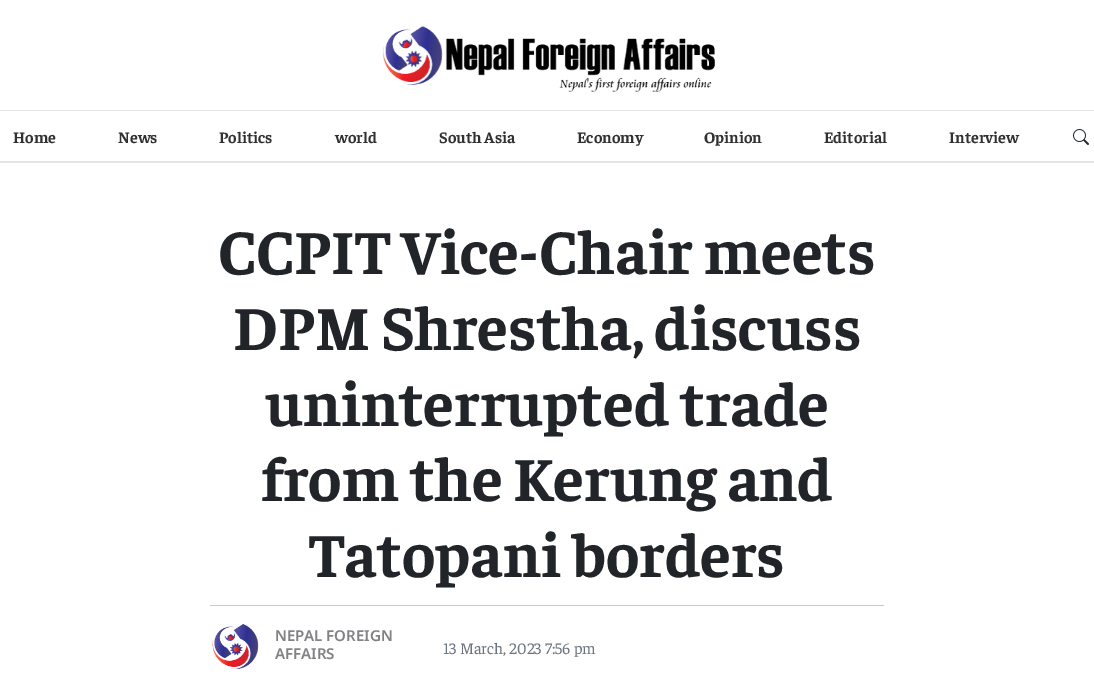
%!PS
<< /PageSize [1094 676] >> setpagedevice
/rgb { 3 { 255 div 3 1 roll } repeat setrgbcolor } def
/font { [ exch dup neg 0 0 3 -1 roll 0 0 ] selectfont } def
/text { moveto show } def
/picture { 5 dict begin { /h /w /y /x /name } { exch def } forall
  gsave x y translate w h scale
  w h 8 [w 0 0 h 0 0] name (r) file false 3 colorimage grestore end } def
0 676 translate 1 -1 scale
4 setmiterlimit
255 255 255 rgb
0 0 1094 676 rectfill
(img_01.rgb) 382 26 333 66 picture
229 229 229 rgb
0 110 1094 1 rectfill
0 161 1094 2 rectfill
(img_02.rgb) 1073 129 16 16 picture
200 201 202 rgb
210 605 674 1 rectfill
(img_03.rgb) 212 624 47 45 picture
/Faustina-Bold 16 font
49 49 49 rgb
(Home) 13 143 text
(News) 118 143 text
(Politics) 219 143 text
(world) 335 143 text
(South Asia) 439 143 text
(Economy) 577 143 text
(Opinion) 704 143 text
(Editorial) 824 143 text
(Interview) 949 143 text
/Faustina-Bold 63 font
33 37 41 rgb
(CCPIT Vice-Chair meets) 218 274 text
(DPM Shrestha, discuss) 233 350 text
(uninterrupted trade) 265 426 text
(from the Kerung and) 261 501 text
(Tatopani borders) 309 577 text
/NotoSansDevanagari-SemiBold 15 font
129 130 133 rgb
(NEPAL FOREIGN) 275 641 text
(AFFAIRS) 275 659 text
/Faustina-Regular 16 font
108 117 125 rgb
(13 March, 2023 7:56 pm) 443 654 text
showpage
